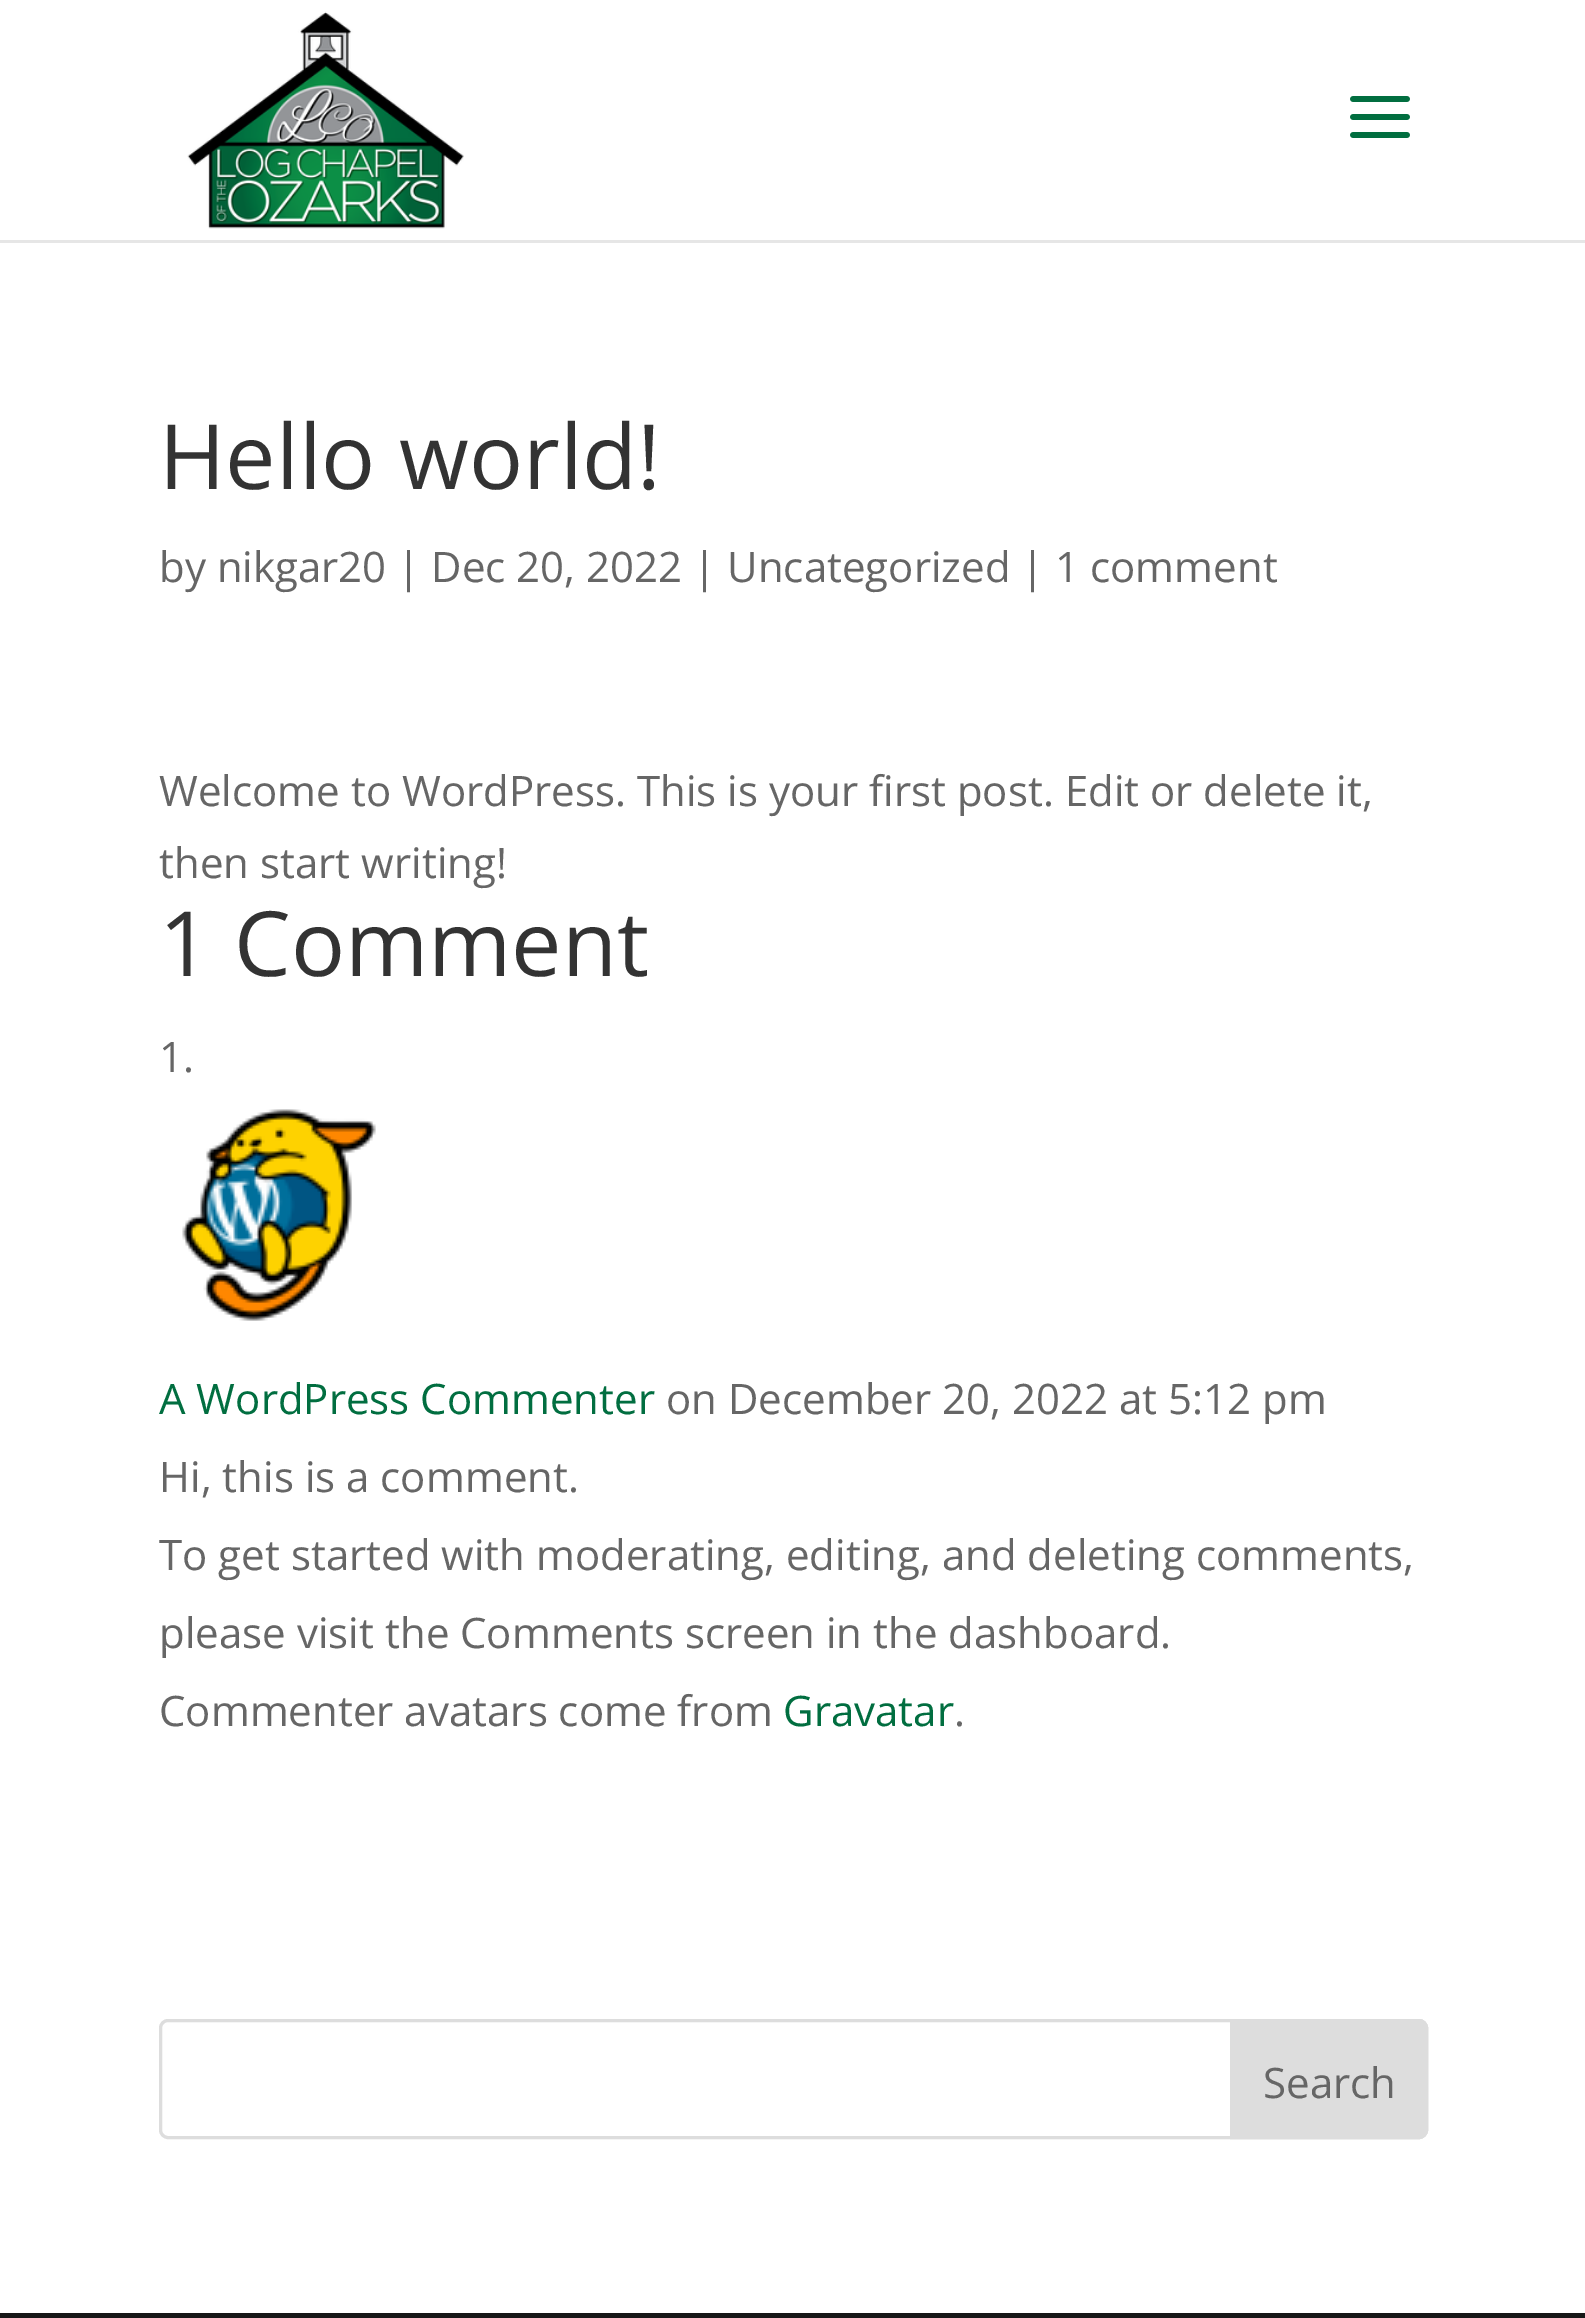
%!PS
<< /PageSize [1585 2318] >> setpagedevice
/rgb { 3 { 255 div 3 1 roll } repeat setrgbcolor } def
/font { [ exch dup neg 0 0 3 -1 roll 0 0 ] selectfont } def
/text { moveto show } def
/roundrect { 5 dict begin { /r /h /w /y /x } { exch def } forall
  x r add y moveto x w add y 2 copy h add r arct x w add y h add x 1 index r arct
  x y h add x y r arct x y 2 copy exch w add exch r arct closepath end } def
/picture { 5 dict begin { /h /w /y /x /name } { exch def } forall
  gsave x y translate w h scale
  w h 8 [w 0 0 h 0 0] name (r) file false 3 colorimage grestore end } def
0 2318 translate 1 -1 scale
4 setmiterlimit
255 255 255 rgb
0 0 1585 2318 rectfill
230 230 230 rgb
0 240 1585 3 rectfill
(img_01.rgb) 187 11 277 218 picture
(img_02.rgb) 1350 96 60 42 picture
(img_03.rgb) 182 1109 194 212 picture
221 221 221 rgb
3 setlinewidth
160.5 2020.5 1266 117 7.5 roundrect stroke
1231.5 2020.5 moveto 187.5 0 rlineto 4 0 7.5 3.5 7.5 7.5 rcurveto 0 102 rlineto 0 4 -3.5 7.5 -7.5 7.5 rcurveto -187.5 0 rlineto closepath gsave fill grestore
stroke
23 23 23 rgb
0 2313 1585 5 rectfill
/OpenSans-Regular 90 font
51 51 51 rgb
(Hello world!) 159 489 text
/OpenSans-Regular 42 font
102 102 102 rgb
(by nikgar20 | Dec 20, 2022 | Uncategorized | 1 comment) 159 582 text
(Welcome to WordPress. This is your first post. Edit or delete it,) 159 806 text
(then start writing!) 159 878 text
/OpenSans-Regular 90 font
51 51 51 rgb
(1 Comment) 159 976 text
/OpenSans-Regular 42 font
102 102 102 rgb
(1.) 159 1072 text
1 110 64 rgb
(A WordPress Commenter) 159 1414 text
102 102 102 rgb
(on December 20, 2022 at 5:12 pm) 666 1414 text
(Hi, this is a comment.) 159 1492 text
(To get started with moderating, editing, and deleting comments,) 159 1570 text
(please visit the Comments screen in the dashboard.) 159 1648 text
(Commenter avatars come from) 159 1726 text
1 110 64 rgb
(Gravatar) 783 1726 text
102 102 102 rgb
(.) 954 1726 text
(Search) 1263 2098 text
showpage
